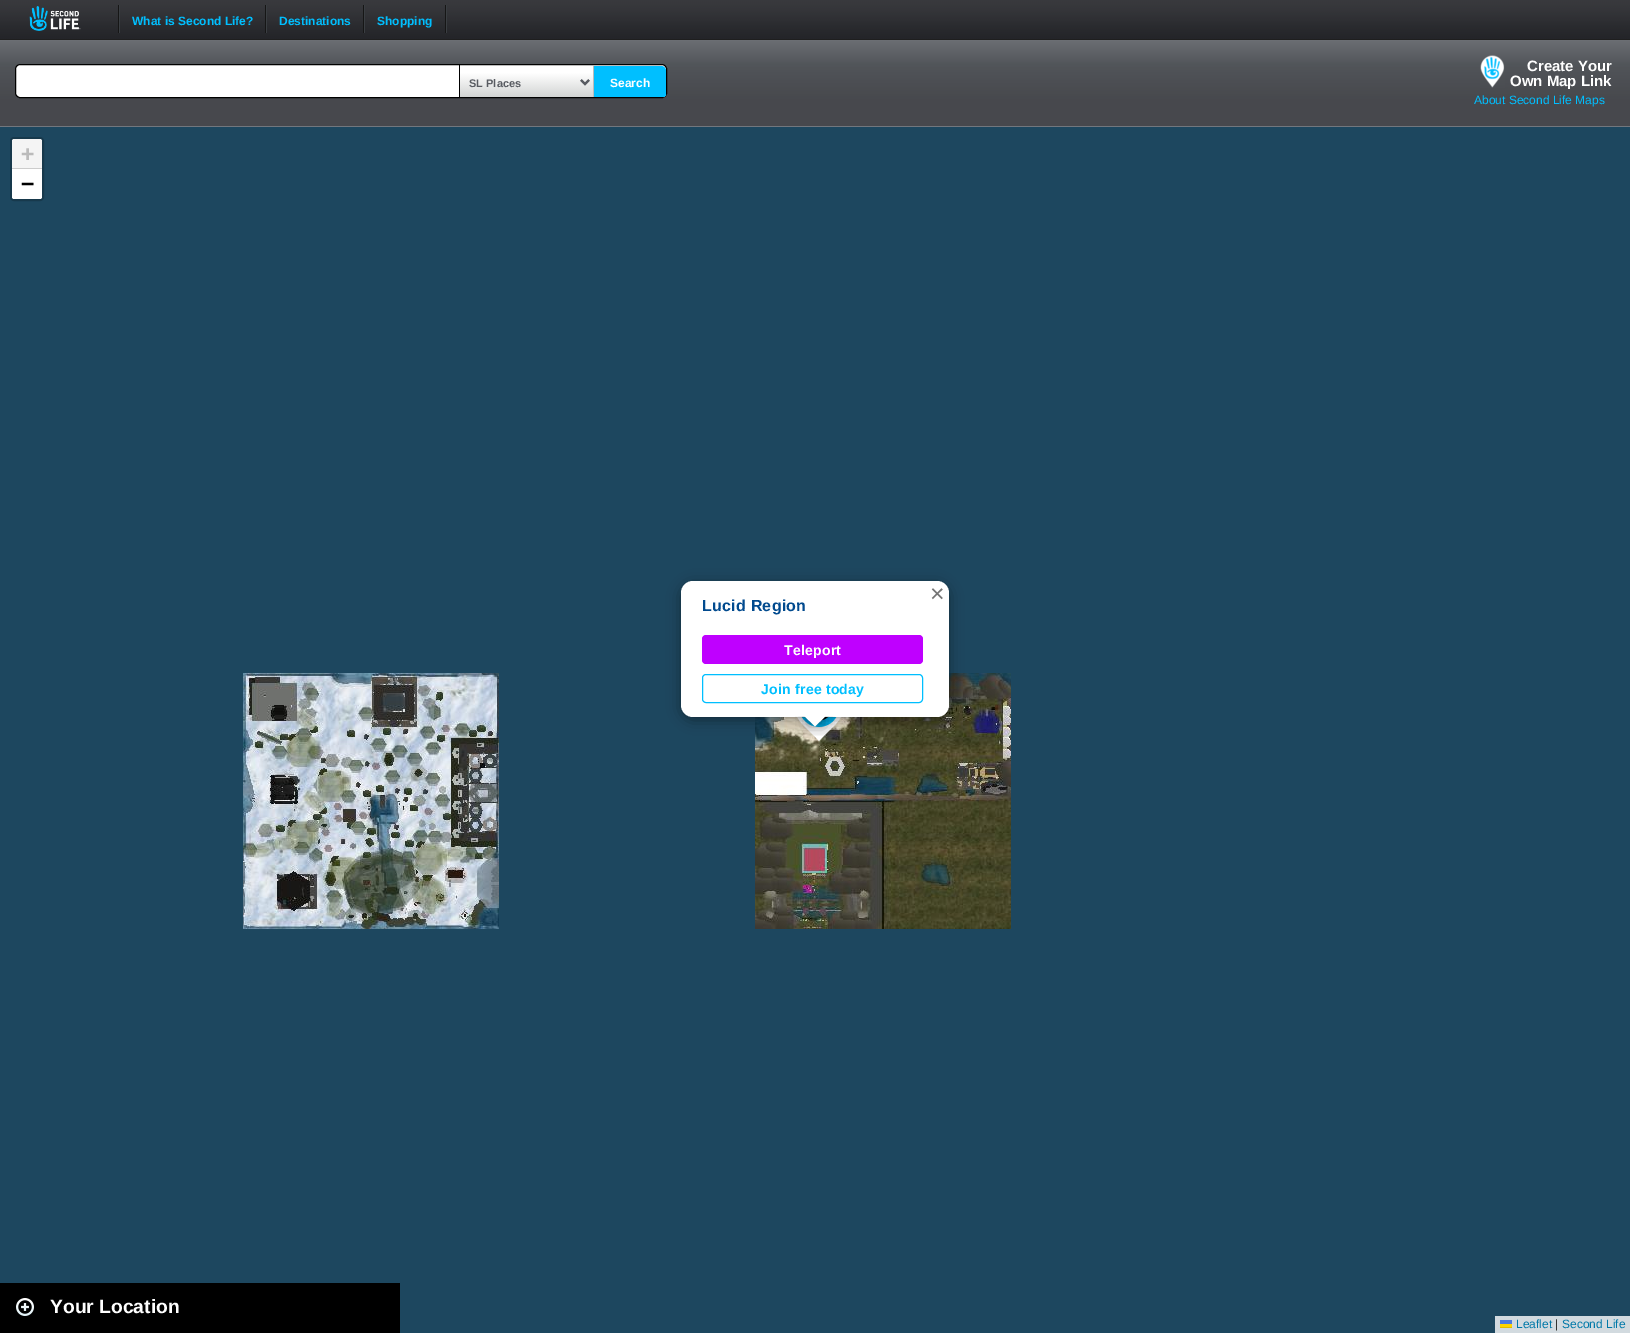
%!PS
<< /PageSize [1630 1333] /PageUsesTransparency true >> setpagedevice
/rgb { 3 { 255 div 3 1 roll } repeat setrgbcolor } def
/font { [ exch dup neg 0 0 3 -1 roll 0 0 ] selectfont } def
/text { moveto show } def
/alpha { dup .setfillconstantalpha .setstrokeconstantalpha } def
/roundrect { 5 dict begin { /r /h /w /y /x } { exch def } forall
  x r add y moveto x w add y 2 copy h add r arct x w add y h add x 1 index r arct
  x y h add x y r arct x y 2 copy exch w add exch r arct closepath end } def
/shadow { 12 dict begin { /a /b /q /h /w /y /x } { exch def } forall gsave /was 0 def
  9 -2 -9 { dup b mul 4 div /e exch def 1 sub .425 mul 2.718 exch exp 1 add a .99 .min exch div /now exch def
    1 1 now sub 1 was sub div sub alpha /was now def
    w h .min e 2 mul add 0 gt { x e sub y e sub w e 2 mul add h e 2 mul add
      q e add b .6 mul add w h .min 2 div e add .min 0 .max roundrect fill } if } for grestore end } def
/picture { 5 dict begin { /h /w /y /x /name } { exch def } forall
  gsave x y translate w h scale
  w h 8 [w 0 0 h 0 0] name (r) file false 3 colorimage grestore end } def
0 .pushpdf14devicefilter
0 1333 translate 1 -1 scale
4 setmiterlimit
29 71 95 rgb
0 0 1630 1333 rectfill
(img_01.rgb) 0 0 1630 40 picture
(img_02.rgb) 29 6 52 25 picture
58 62 66 rgb
119 5 1 28 rectfill
22 22 22 rgb
118 5 1 28 rectfill
58 62 66 rgb
266 5 1 28 rectfill
22 22 22 rgb
265 5 1 28 rectfill
58 62 66 rgb
364 5 1 28 rectfill
22 22 22 rgb
363 5 1 28 rectfill
58 62 66 rgb
446 5 1 28 rectfill
22 22 22 rgb
445 5 1 28 rectfill
gsave 0 40 moveto 1630 0 rlineto 0 86 rlineto -1630 0 rlineto closepath clip newpath
<< /ShadingType 2 /ColorSpace /DeviceRGB /Coords [0 126 0 40] /Extend [true true] /Function << /FunctionType 3 /Domain [0 1] /Functions [<< /FunctionType 2 /Domain [0 1] /C0 [0.278 0.282 0.302] /C1 [0.278 0.282 0.302] /N 1 >> << /FunctionType 2 /Domain [0 1] /C0 [0.278 0.282 0.302] /C1 [0.318 0.333 0.349] /N 1 >> << /FunctionType 2 /Domain [0 1] /C0 [0.318 0.333 0.349] /C1 [0.42 0.431 0.451] /N 1 >>] /Bounds [0.29 0.71] /Encode [0 1 0 1 0 1] >> >> shfill grestore
114 119 126 rgb
0 126 1630 1 rectfill
255 255 255 rgb
15.5 64.5 651 33 4.5 roundrect gsave fill grestore
0 0 0 rgb
stroke
(img_03.rgb) 460 66 133 31 picture
187 187 187 rgb
459 65 135 1 rectfill
593 65 1 32 rectfill
0 0 0 rgb
459 65 1 32 rectfill
89 92 98 rgb
2 setlinewidth
581 80 moveto 4 4 rlineto 4 -4 rlineto stroke
gsave
16 65 650 32 4 roundrect clip newpath
0 191 255 rgb
594 66 moveto 67 0 rlineto 3 0 5 2 5 5 rcurveto 0 24 rlineto 0 3 -2 5 -5 5 rcurveto -67 0 rlineto closepath fill
grestore
(img_04.rgb) 1480 55 25 33 picture
23 57 76 rgb
11 138 32 62 3 roundrect stroke
244 244 244 rgb
14 139 moveto 26 0 rlineto 1 0 2 1 2 2 rcurveto 0 28 rlineto -30 0 rlineto 0 -28 rlineto 0 -1 1 -2 2 -2 rcurveto closepath fill
204 204 204 rgb
12 168 30 1 rectfill
255 255 255 rgb
12 169 moveto 30 0 rlineto 0 28 rlineto 0 1 -1 2 -2 2 rcurveto -26 0 rlineto -1 0 -2 -1 -2 -2 rcurveto closepath fill
210 218 223 rgb
1495 1316 135 17 rectfill
76 123 225 rgb
1500 1320 12 4 rectfill
255 213 0 rgb
1500 1324 12 3 rectfill
224 188 0 rgb
1500 1327 12 1 rectfill
(img_06.rgb) 755 673 256 256 picture
(img_07.rgb) 797 717 44 24 picture
0 0 0 rgb
681 584 268 136 12 7 0.4 shadow
255 255 255 rgb
681 581 268 136 12 roundrect fill
191 0 255 rgb
702 635 221 29 4 roundrect fill
0 191 255 rgb
1 setlinewidth
702.5 674.5 220 28 3.5 roundrect stroke
gsave
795 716 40 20 rectclip
0 0 0 rgb
807 709 17 17 0 7 0.4 shadow
grestore
gsave
795 716 40 20 rectclip
255 255 255 rgb
815 702.5 moveto 12 12 rlineto -12 12 rlineto -12 -12 rlineto closepath fill
grestore
(img_05.rgb) 243 673 256 256 picture
0 0 0 rgb
0 1283 400 50 rectfill
(img_08.rgb) 16 1298 18 18 picture
/LiberationSans-Bold 12 font
0 191 255 rgb
(What is Second Life?) 132 25 text
(Destinations) 279 25 text
(Shopping) 377 25 text
/LiberationSans-Bold 11 font
89 92 98 rgb
(SL Places) 469 87 text
/LiberationSans-Bold 12 font
255 255 255 rgb
(Search) 610 87 text
/LiberationSans-Bold 15 font
(Create Your) 1527 71 text
(Own Map Link) 1510 86 text
/LiberationSans-Regular 12 font
0 191 255 rgb
(About Second Life Maps) 1474 104 text
/DejaVuSansMono-Bold 22 font
187 187 187 rgb
(+) 21 161 text
0 0 0 rgb
(−) 21 191 text
/LiberationSans-Regular 12 font
0 120 168 rgb
(Leaflet) 1516 1328 text
51 51 51 rgb
(|) 1555 1328 text
0 120 168 rgb
(Second Life) 1562 1328 text
/LiberationSans-Regular 25 font
117 117 117 rgb
(×) 930 602 text
/LiberationSans-Bold 16 font
1 74 142 rgb
702 611 moveto 0.25 0 (Lucid Region) ashow
/LiberationSans-Bold 14 font
255 255 255 rgb
784 655 moveto 0.25 0 (Teleport) ashow
0 191 255 rgb
761 694 moveto 0.25 0 (Join free today) ashow
/LiberationSans-Bold 19.25 font
255 255 255 rgb
(Your Location) 50 1313 text
.poppdf14devicefilter showpage
